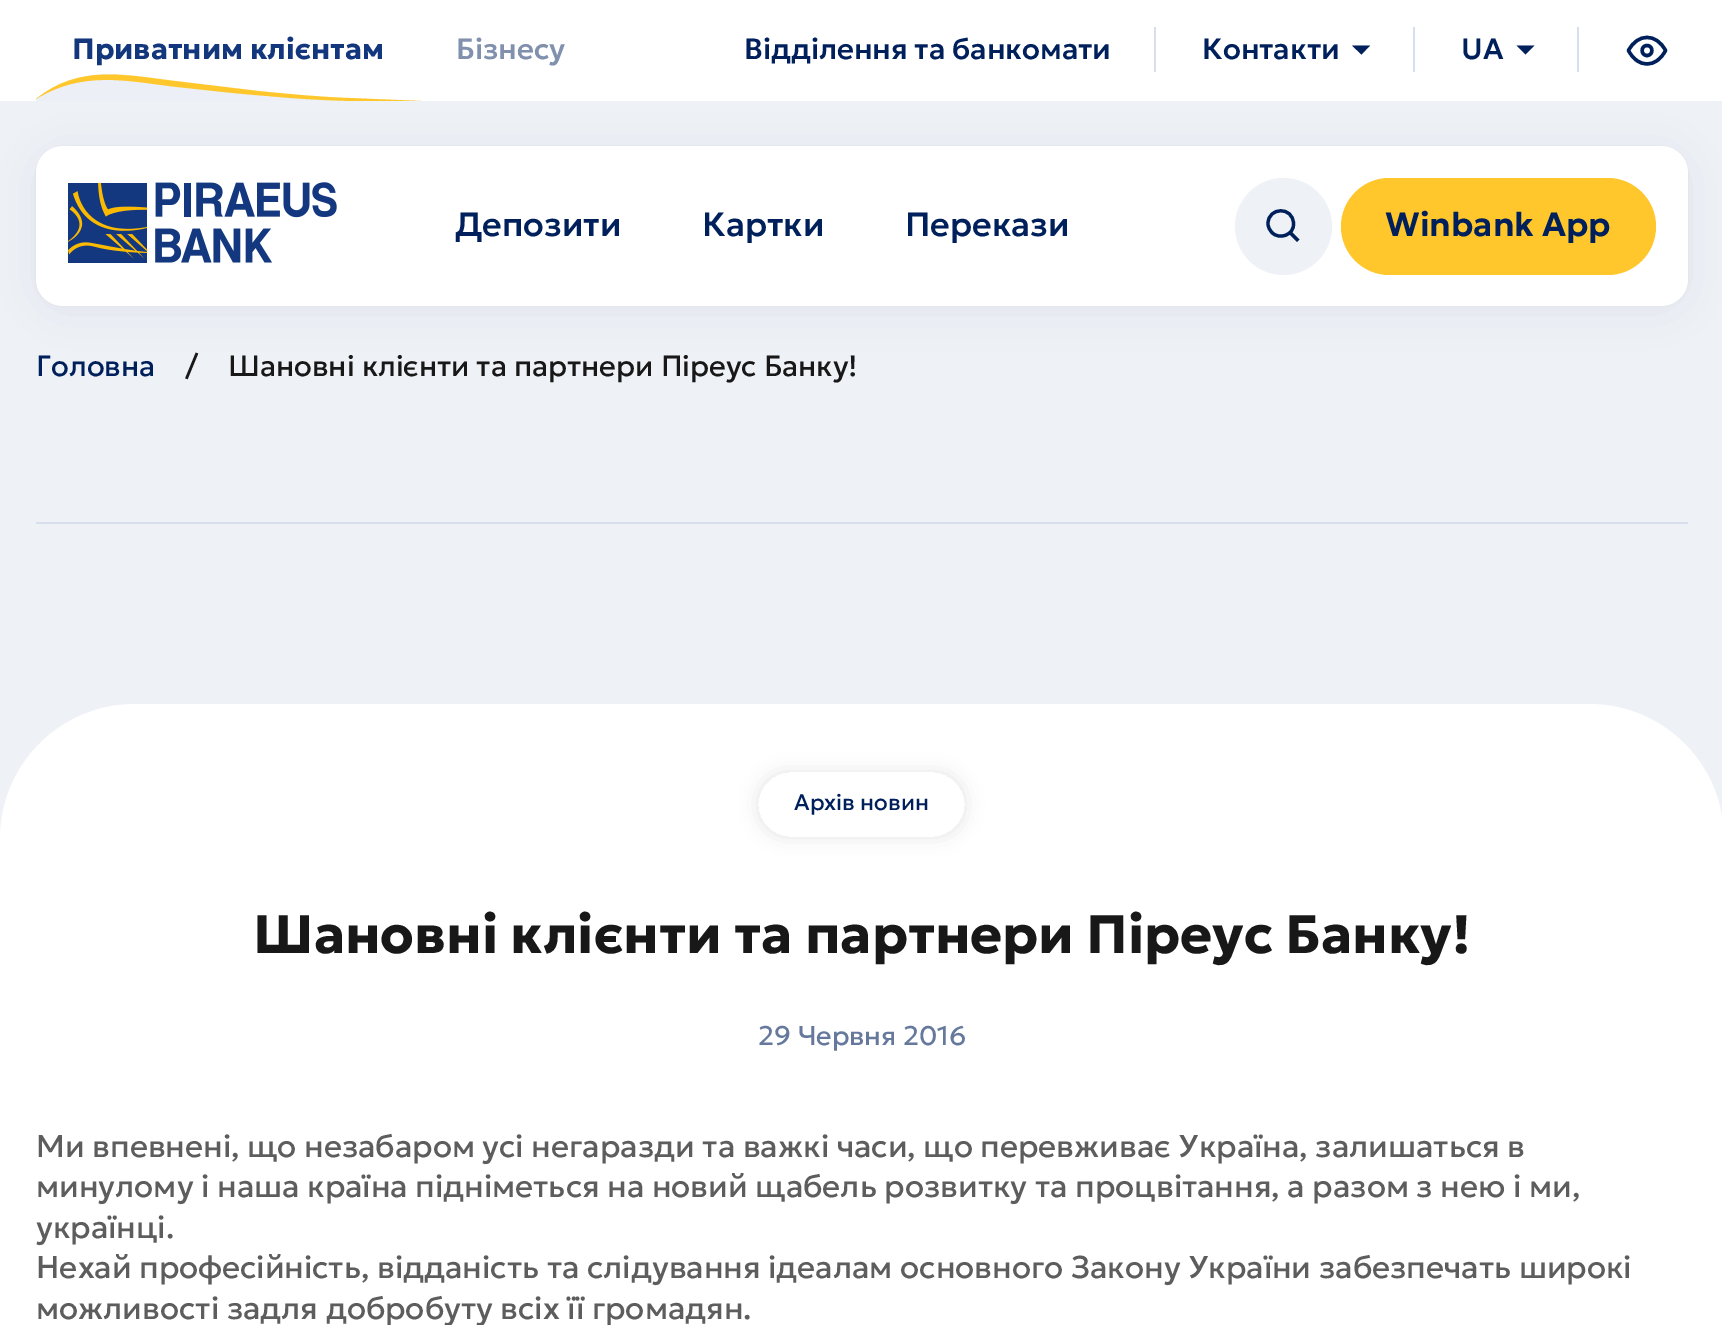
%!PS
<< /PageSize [1722 1325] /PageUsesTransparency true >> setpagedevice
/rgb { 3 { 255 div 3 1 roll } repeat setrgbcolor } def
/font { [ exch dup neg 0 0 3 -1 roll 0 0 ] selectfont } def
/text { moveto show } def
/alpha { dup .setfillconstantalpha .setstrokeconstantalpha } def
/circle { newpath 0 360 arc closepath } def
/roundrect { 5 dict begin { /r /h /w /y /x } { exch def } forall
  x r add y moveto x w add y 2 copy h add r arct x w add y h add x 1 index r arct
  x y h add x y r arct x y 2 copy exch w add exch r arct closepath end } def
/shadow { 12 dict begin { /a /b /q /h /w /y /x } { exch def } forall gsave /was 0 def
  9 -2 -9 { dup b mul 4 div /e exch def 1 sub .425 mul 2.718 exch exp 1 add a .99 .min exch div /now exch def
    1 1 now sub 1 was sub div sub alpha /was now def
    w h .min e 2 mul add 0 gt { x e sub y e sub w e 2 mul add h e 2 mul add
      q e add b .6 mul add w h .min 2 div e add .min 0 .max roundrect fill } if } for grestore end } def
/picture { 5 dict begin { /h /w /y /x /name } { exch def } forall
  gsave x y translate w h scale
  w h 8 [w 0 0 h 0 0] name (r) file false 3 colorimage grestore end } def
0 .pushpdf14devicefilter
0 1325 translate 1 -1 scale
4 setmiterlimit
238 241 246 rgb
0 0 1722 1325 rectfill
0 32 91 rgb
36 151 1652 160 27 22.5 0.06 shadow
255 255 255 rgb
0 0 1722 101 rectfill
gsave
36 72 385 29 rectclip
236 240 246 rgb
416 101 moveto -81 -1 -112 0 -288 -25 rcurveto -57 -9 -92 23 -92 23 rcurveto 0 11 rlineto 380 0 rlineto closepath fill
255 199 44 rgb
36 99 moveto 43 -35 89 -24 139 -18 rcurveto 83 10 rlineto 30 3 61 6 91 7 rcurveto 72 3 rlineto -52 1 -102 0 -153 -5 rcurveto -30 -2 -61 -6 -91 -9 rcurveto -50 -6 -94 -17 -141 12 rcurveto closepath fill
grestore
216 223 236 rgb
1154 27 2 45 rectfill
0 32 91 rgb
1352 45.5 moveto 9.5 9 rlineto 8.5 -9 rlineto closepath fill
216 223 236 rgb
1413 27 2 45 rectfill
0 32 91 rgb
1516.5 45.5 moveto 9 9 rlineto 9 -9 rlineto closepath fill
216 223 236 rgb
1577 27 2 45 rectfill
0 32 91 rgb
3.4 setlinewidth
1 setlinecap
1 setlinejoin
1628.5 50.5 moveto 9 -17.5 28 -17.5 37 0 rcurveto -9 18 -28 18 -37 0 rcurveto closepath 1647 55.5 moveto 6.5 0 6.5 -10 0 -10 rcurveto -6.5 0 -6.5 10 0 10 rcurveto closepath stroke
0 0 0 rgb
36 146 1652 160 27 1 0.06 shadow
255 255 255 rgb
36 146 1652 160 27 roundrect fill
(img_01.rgb) 68 182 269 81 picture
238 241 246 rgb
1283.5 226.5 48.5 circle fill
0 32 91 rgb
3.2 setlinewidth
2 setlinecap
1290.5 233 moveto 6.5 6.5 rlineto stroke
1 setlinecap
1268 223.5 moveto 0 3.5 1.5 6.5 4 9 rcurveto 7.5 8 22.5 2 21.5 -9 rcurveto -0.5 -17.5 -25.5 -16.5 -25.5 0 rcurveto closepath stroke
255 199 44 rgb
1341 178 315 97 48.5 roundrect fill
216 223 236 rgb
36 522 1652 2 rectfill
255 255 255 rgb
0 704 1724 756 135 roundrect fill
gsave
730 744 moveto 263 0 rlineto 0 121 rlineto -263 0 rlineto closepath 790.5 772 moveto 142 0 rlineto 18 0 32.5 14.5 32.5 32.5 rcurveto 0 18 -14.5 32.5 -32.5 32.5 rcurveto -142 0 rlineto -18 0 -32.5 -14.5 -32.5 -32.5 rcurveto 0 -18 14.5 -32.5 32.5 -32.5 rcurveto closepath eoclip newpath
0 0 0 rgb
758 772 207 65 32.5 9 0.1 shadow
grestore
/Geologica-Bold 29.25 font
19 55 125 rgb
(Приватним клієнтам) 72 59 text
/Geologica-Medium 29.25 font
128 144 173 rgb
(Бізнесу) 456 59 text
0 32 91 rgb
(Відділення та банкомати) 744 59 text
(Контакти) 1202 59 text
(UA) 1461 59 text
/Geologica-Medium 33.75 font
(Депозити) 455 236 text
(Картки) 702 236 text
(Перекази) 905 236 text
/Geologica-SemiBold 33.75 font
(Winbank App) 1385 236 text
/Geologica-Regular 29.25 font
(Головна) 36 376 text
25 24 24 rgb
(/) 185 376 text
(Шановні клієнти та партнери Піреус Банку!) 228 376 text
/Geologica-Regular 22.5 font
0 32 91 rgb
(Архів новин) 794 810 text
/Geologica-Bold 54 font
25 24 24 rgb
(Шановні клієнти та партнери Піреус Банку!) 253 953 text
/Geologica-Regular 27 font
102 121 157 rgb
(29 Червня 2016) 758 1045 text
/Geologica-Regular 31.5 font
94 93 93 rgb
(Ми впевнені, що незабаром усі негаразди та важкі часи, що перевживає Україна, залишаться в) 36 1157 text
(минулому і наша країна підніметься на новий щабель розвитку та процвітання, а разом з нею і ми,) 36 1197 text
(українці.) 36 1238 text
(Нехай професійніcть, відданість та слідування ідеалам основного Закону України забезпечать широкі) 36 1278 text
(можливості задля добробуту всіх її громадян.) 36 1319 text
.poppdf14devicefilter showpage
